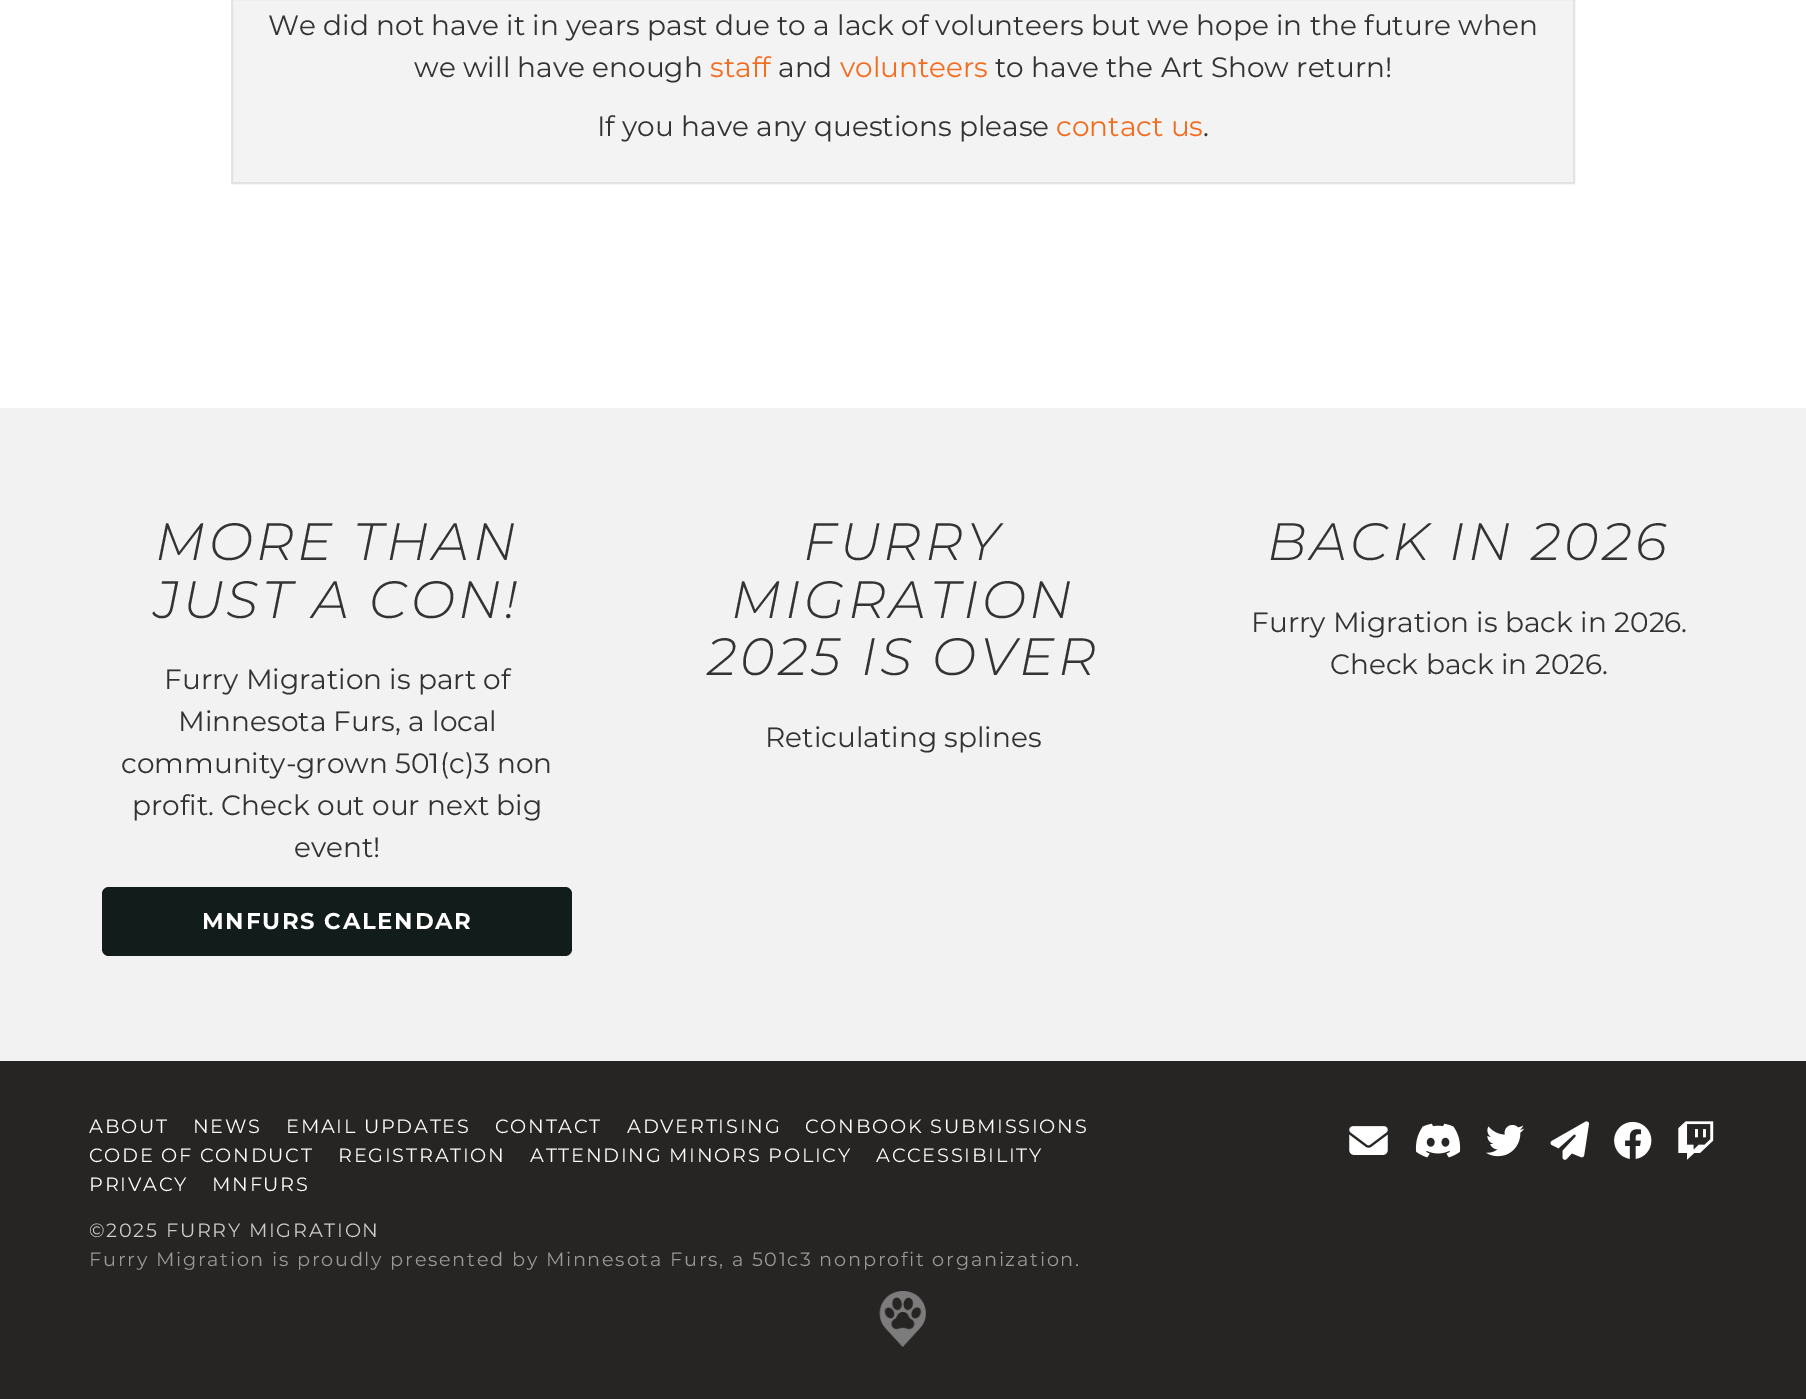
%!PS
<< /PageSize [1806 1399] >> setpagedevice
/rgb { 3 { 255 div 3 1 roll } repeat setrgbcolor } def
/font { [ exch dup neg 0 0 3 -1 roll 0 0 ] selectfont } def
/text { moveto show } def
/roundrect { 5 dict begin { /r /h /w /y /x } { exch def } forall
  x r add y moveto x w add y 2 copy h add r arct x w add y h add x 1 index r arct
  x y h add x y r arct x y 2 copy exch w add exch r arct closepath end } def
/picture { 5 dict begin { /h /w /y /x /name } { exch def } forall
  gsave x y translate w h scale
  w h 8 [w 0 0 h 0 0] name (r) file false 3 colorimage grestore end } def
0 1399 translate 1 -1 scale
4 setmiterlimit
39 36 36 rgb
0 0 1806 1399 rectfill
255 255 255 rgb
0 0 1806 408 rectfill
243 243 243 rgb
232 -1 moveto 1342 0 rlineto 0 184 rlineto -1342 0 rlineto closepath gsave fill grestore
227 227 227 rgb
2 setlinewidth
stroke
242 242 242 rgb
0 408 1806 653 rectfill
18 28 26 rgb
102 887 470 69 7 roundrect fill
(img_01.rgb) 1349 1126 39 29 picture
(img_02.rgb) 1415 1123 46 35 picture
(img_03.rgb) 1486 1124 39 33 picture
(img_04.rgb) 1550 1121 39 39 picture
(img_05.rgb) 1614 1121 38 38 picture
(img_06.rgb) 1678 1121 36 39 picture
(img_07.rgb) 879 1291 47 56 picture
/Montserrat-Regular 28 font
51 51 51 rgb
(We did not have it in years past due to a lack of volunteers but we hope in the future when) 268 35 text
(we will have enough) 414 77 text
243 109 33 rgb
(staff) 710 77 text
51 51 51 rgb
(and) 778 77 text
243 109 33 rgb
(volunteers) 840 77 text
51 51 51 rgb
(to have the Art Show return!) 995 77 text
(If you have any questions please) 597 136 text
243 109 33 rgb
(contact us) 1056 136 text
51 51 51 rgb
(.) 1203 136 text
/Montserrat-LightItalic 52.5 font
155 560 moveto 3.5 0 (MORE THAN) ashow
154 618 moveto 3.5 0 (JUST A CON!) ashow
/Montserrat-Regular 28 font
(Furry Migration is part of) 164 689 text
(Minnesota Furs, a local) 178 731 text
(community-grown 501\(c\)3 non) 121 773 text
(profit. Check out our next big) 132 815 text
(event!) 294 857 text
/Montserrat-Bold 22.75 font
255 255 255 rgb
202 929 moveto 1.75 0 (MNFURS CALENDAR) ashow
/Montserrat-LightItalic 52.5 font
51 51 51 rgb
803 560 moveto 3.5 0 (FURRY) ashow
731 618 moveto 3.5 0 (MIGRATION) ashow
707 675 moveto 3.5 0 (2025 IS OVER) ashow
/Montserrat-Regular 28 font
(Reticulating splines) 765 747 text
/Montserrat-LightItalic 52.5 font
1267 560 moveto 3.5 0 (BACK IN 2026) ashow
/Montserrat-Regular 28 font
(Furry Migration is back in 2026.) 1251 632 text
(Check back in 2026.) 1330 674 text
/Montserrat-Regular 19.25 font
255 255 255 rgb
89 1133 moveto 1.75 0 (ABOUT) ashow
193 1133 moveto 1.75 0 (NEWS) ashow
286 1133 moveto 1.75 0 (EMAIL UPDATES) ashow
495 1133 moveto 1.75 0 (CONTACT) ashow
627 1133 moveto 1.75 0 (ADVERTISING) ashow
805 1133 moveto 1.75 0 (CONBOOK SUBMISSIONS) ashow
89 1162 moveto 1.75 0 (CODE OF CONDUCT) ashow
338 1162 moveto 1.75 0 (REGISTRATION) ashow
530 1162 moveto 1.75 0 (ATTENDING MINORS POLICY) ashow
876 1162 moveto 1.75 0 (ACCESSIBILITY) ashow
89 1191 moveto 1.75 0 (PRIVACY) ashow
212 1191 moveto 1.75 0 (MNFURS) ashow
204 204 204 rgb
89 1237 moveto 1.75 0 (©2025 FURRY MIGRATION) ashow
153 153 153 rgb
89 1266 moveto 1.75 0 (Furry Migration is proudly presented by Minnesota Furs, a 501c3 nonprofit organization.) ashow
showpage
